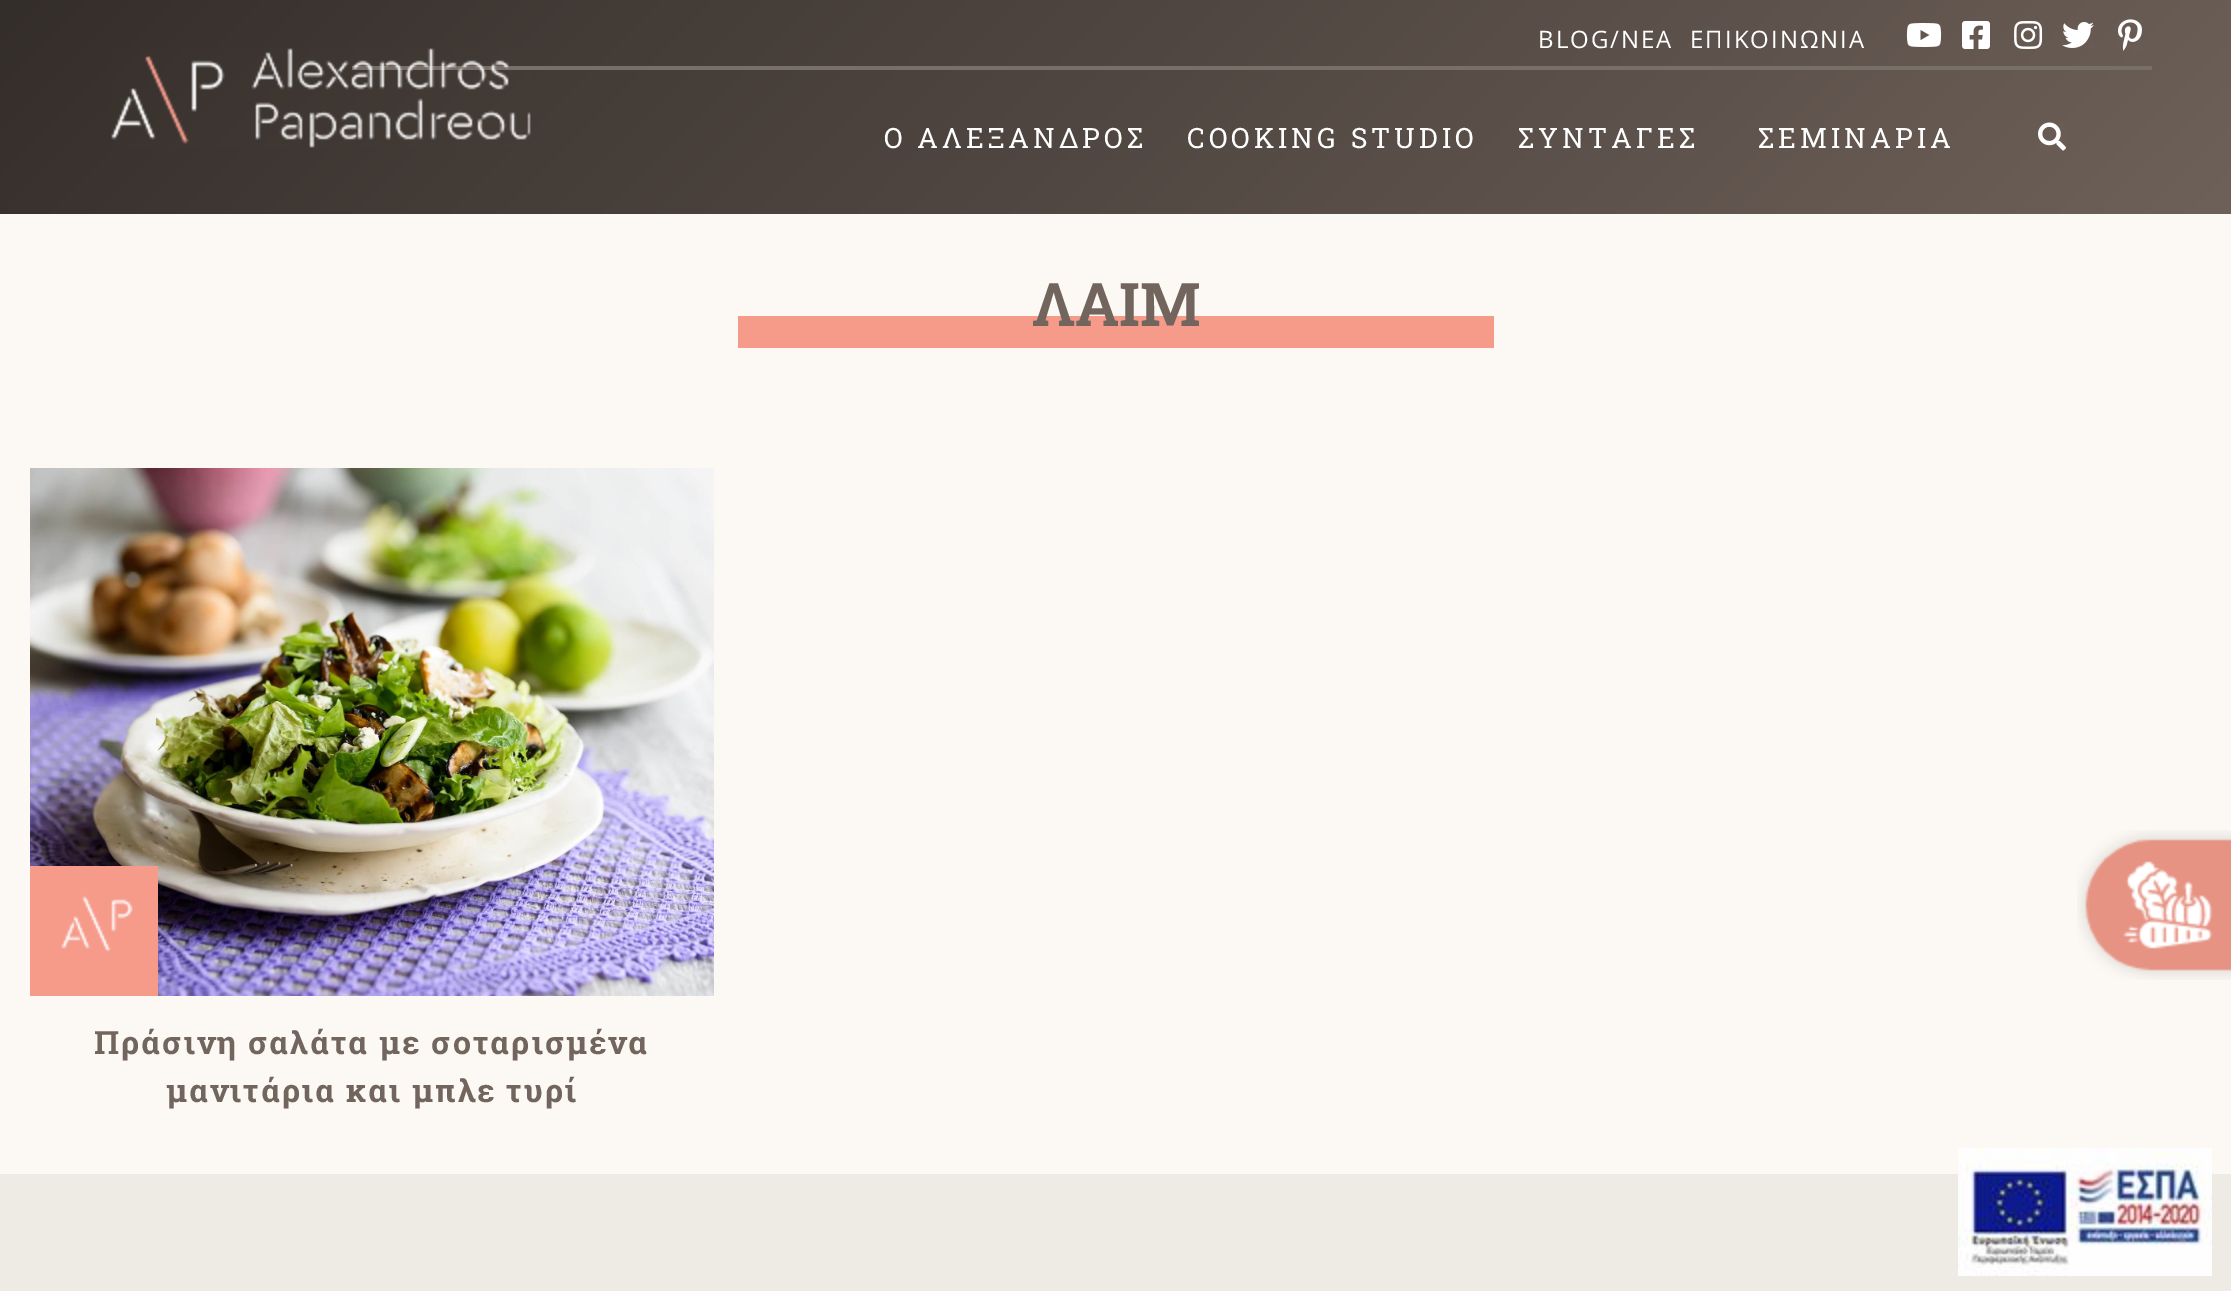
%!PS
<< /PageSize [2231 1291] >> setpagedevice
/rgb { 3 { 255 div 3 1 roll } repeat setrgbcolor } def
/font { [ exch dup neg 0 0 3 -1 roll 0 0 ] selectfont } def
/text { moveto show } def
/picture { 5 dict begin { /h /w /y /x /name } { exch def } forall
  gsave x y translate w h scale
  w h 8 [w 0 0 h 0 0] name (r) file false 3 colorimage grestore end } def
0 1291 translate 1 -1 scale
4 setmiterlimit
252 249 244 rgb
0 0 2231 1291 rectfill
gsave 0 0 moveto 2231 0 rlineto 0 214 rlineto -2231 0 rlineto closepath clip newpath
<< /ShadingType 2 /ColorSpace /DeviceRGB /Coords [504 -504 1728 719] /Extend [true true] /Function << /FunctionType 2 /Domain [0 1] /C0 [0.204 0.18 0.165] /C1 [0.431 0.38 0.349] /N 1 >> >> shfill grestore
119 111 104 rgb
352 66 1800 4 rectfill
(img_01.rgb) 111 48 420 100 picture
(img_02.rgb) 1906 23 36 24 picture
(img_03.rgb) 1962 21 28 28 picture
(img_04.rgb) 2014 21 29 28 picture
(img_05.rgb) 2062 22 32 26 picture
(img_06.rgb) 2118 19 24 32 picture
(img_07.rgb) 2038 122 28 29 picture
246 154 138 rgb
738 316 756 32 rectfill
(img_08.rgb) 30 468 684 528 picture
(img_09.rgb) 30 866 128 130 picture
238 234 228 rgb
0 1174 2231 117 rectfill
(img_10.rgb) 2077 830 154 150 picture
(img_11.rgb) 1958 1148 254 128 picture
/OpenSans-Regular 24 font
255 255 255 rgb
1538 48 moveto 2 0 (BLOG/ΝΕΑ) ashow
1690 48 moveto 2 0 (ΕΠΙΚΟΙΝΩΝΙΑ) ashow
/RobotoSlab-Regular 28 font
884 148 moveto 4 0 (Ο ΑΛΕΞΑΝΔΡΟΣ) ashow
1187 148 moveto 4 0 (COOKING STUDIO) ashow
1518 148 moveto 4 0 (ΣΥΝΤΑΓΕΣ) ashow
1758 148 moveto 4 0 (ΣΕΜΙΝΑΡΙΑ) ashow
/RobotoSlab-Bold 60 font
114 101 93 rgb
(ΛΑΙΜ) 1032 326 text
/RobotoSlab-Bold 32 font
94 1054 moveto 2 0 (Πράσινη σαλάτα με σοταρισμένα) ashow
166 1102 moveto 2 0 (μανιτάρια και μπλε τυρί) ashow
showpage
